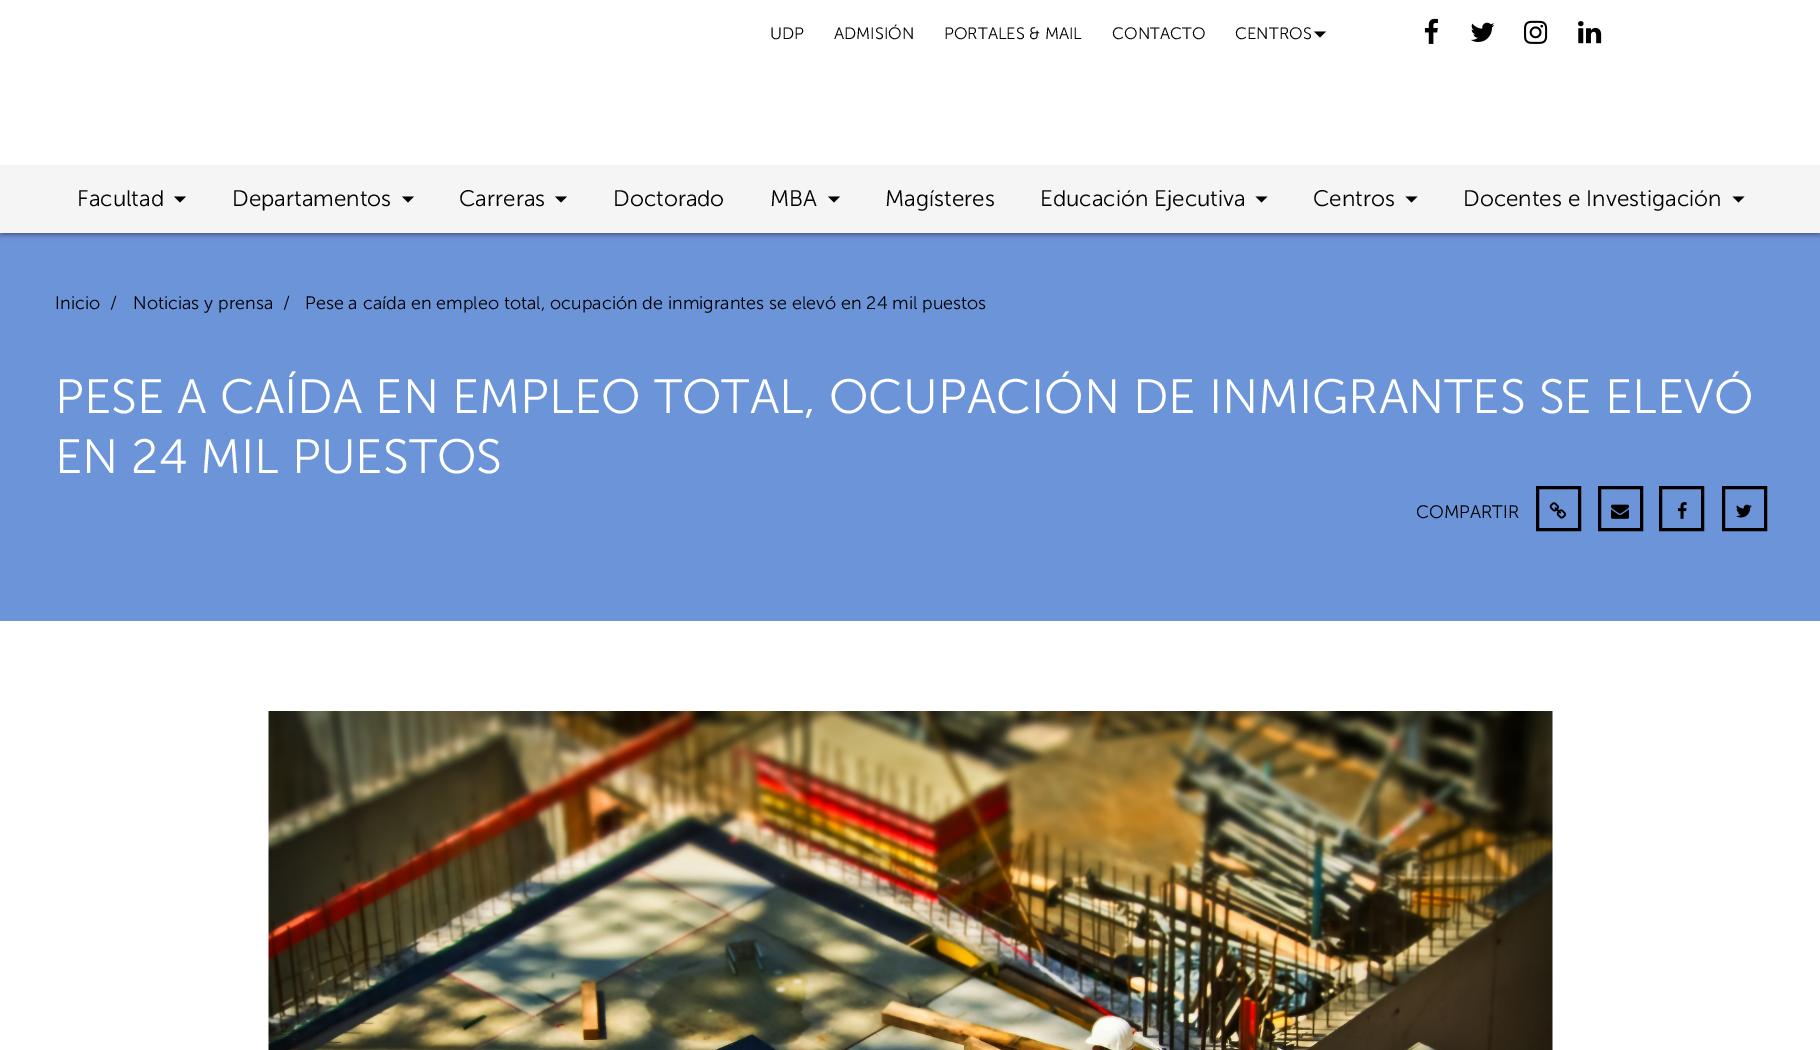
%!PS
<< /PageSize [1820 1050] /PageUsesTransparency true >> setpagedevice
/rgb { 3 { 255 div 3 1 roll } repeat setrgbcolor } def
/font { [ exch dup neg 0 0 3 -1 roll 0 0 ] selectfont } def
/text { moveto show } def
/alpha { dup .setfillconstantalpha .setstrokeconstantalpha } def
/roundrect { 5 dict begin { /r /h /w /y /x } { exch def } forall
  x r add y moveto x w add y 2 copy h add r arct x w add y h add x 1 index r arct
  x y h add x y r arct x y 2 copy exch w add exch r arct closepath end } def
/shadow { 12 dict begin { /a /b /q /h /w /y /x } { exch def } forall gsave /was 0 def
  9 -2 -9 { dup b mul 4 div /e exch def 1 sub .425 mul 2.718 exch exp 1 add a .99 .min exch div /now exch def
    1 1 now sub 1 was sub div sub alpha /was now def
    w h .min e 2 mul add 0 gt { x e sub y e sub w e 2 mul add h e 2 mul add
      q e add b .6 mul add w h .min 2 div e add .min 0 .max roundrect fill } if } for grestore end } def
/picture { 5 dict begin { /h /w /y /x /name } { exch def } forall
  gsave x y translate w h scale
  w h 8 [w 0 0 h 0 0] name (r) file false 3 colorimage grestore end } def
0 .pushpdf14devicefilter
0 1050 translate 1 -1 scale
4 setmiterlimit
255 255 255 rgb
0 0 1820 1050 rectfill
108 148 217 rgb
0 233 1820 388 rectfill
0 0 0 rgb
3 8 1815 226 0 1 0.2 shadow
0 2 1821 232 0 4 0.12 shadow
0 3 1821 233 0 1.5 0.14 shadow
255 255 255 rgb
0 0 1820 165 rectfill
0 0 0 rgb
1314 31.5 moveto 12 0 rlineto -6 6 rlineto closepath fill
(img_01.rgb) 1424 18 14 26 picture
(img_02.rgb) 1470 22 25 20 picture
(img_03.rgb) 1524 20 24 24 picture
(img_04.rgb) 1578 21 24 23 picture
245 245 245 rgb
0 165 1820 68 rectfill
0 0 0 rgb
174 196.5 moveto 12 0 rlineto -6 6 rlineto closepath fill
402 196.5 moveto 12 0 rlineto -6 6 rlineto closepath fill
555 196.5 moveto 12 0 rlineto -6 6 rlineto closepath fill
828 196.5 moveto 12 0 rlineto -6 6 rlineto closepath fill
1255.5 196.5 moveto 12 0 rlineto -6 6 rlineto closepath fill
1405.5 196.5 moveto 12 0 rlineto -6 6 rlineto closepath fill
1732.5 196.5 moveto 12 0 rlineto -6 6 rlineto closepath fill
3 setlinewidth
1537.5 487.5 42 42 rectstroke
(img_05.rgb) 1549 502 17 17 picture
1599.5 487.5 42 42 rectstroke
(img_06.rgb) 1611 504 18 15 picture
1660.5 487.5 42 42 rectstroke
(img_07.rgb) 1677 502 10 17 picture
1723.5 487.5 42 42 rectstroke
(img_08.rgb) 1736 504 16 14 picture
(img_09.rgb) 268 711 1285 339 picture
/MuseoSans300-Light 16.5 font
(UDP) 770 39 text
(ADMISIÓN) 834 39 text
(PORTALES & MAIL) 944 39 text
(CONTACTO) 1112 39 text
(CENTROS) 1235 39 text
/MuseoSans300-Light 22.5 font
(Facultad) 77 206 text
(Departamentos) 232 206 text
(Carreras) 459 206 text
(Doctorado) 613 206 text
(MBA) 770 206 text
(Magísteres) 885 206 text
(Educación Ejecutiva) 1040 206 text
(Centros) 1313 206 text
(Docentes e Investigación) 1463 206 text
/MuseoSans300-Light 18 font
(Inicio) 55 309 text
(/) 110 309 text
(Noticias y prensa) 133 309 text
(/) 283 309 text
(Pese a caída en empleo total, ocupación de inmigrantes se elevó en 24 mil puestos) 305 309 text
/MuseoSans300-Light 48 font
255 255 255 rgb
(PESE A CAÍDA EN EMPLEO TOTAL, OCUPACIÓN DE INMIGRANTES SE ELEVÓ) 55 413 text
(EN 24 MIL PUESTOS) 55 473 text
/MuseoSans300-Light 18 font
0 0 0 rgb
(COMPARTIR) 1416 518 text
.poppdf14devicefilter showpage
